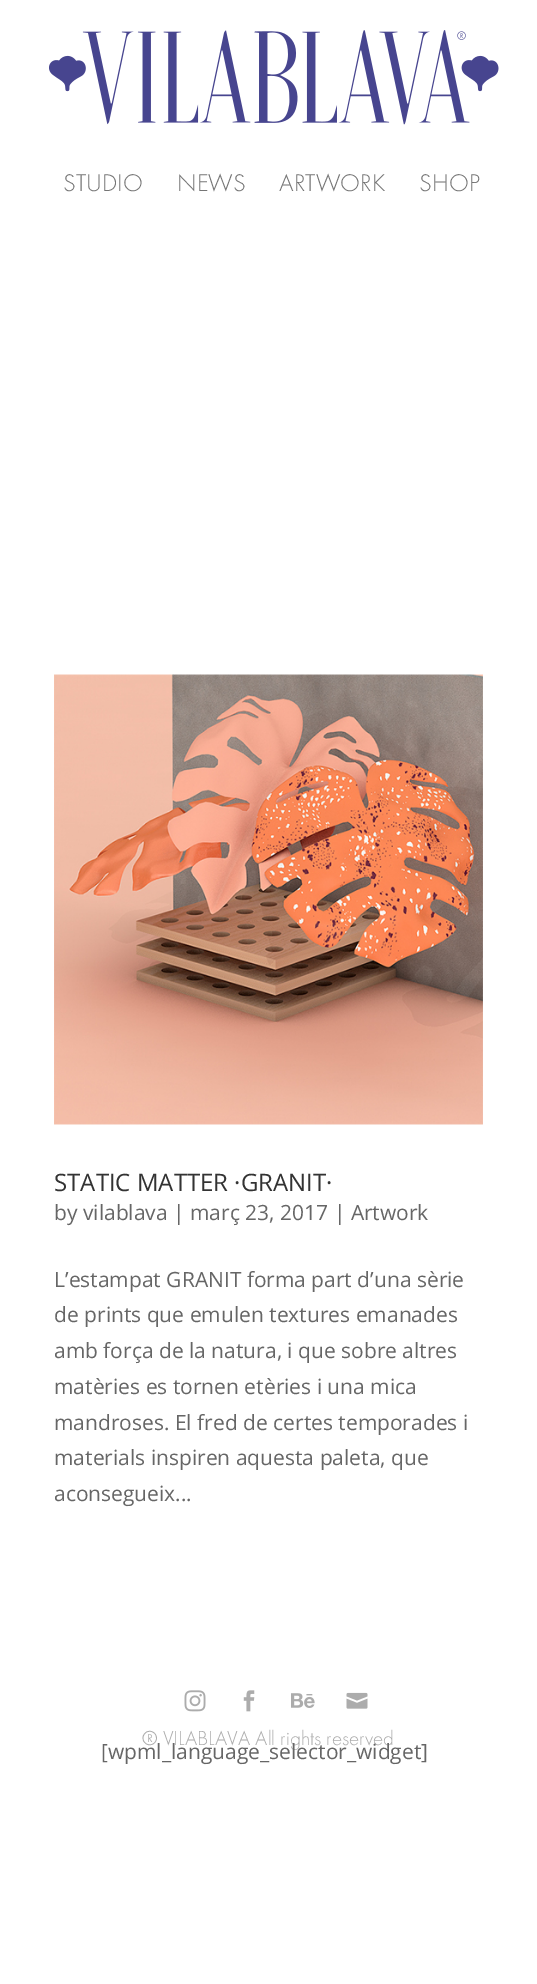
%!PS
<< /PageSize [537 1984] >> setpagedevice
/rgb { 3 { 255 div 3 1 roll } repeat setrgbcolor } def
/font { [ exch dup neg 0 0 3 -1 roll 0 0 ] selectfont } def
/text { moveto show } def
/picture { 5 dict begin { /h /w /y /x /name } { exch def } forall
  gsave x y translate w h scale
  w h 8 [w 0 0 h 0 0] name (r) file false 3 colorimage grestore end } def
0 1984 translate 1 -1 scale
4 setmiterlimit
255 255 255 rgb
0 0 537 1984 rectfill
(img_01.rgb) 49 30 450 95 picture
(img_02.rgb) 54 674 429 451 picture
(img_03.rgb) 184 1690 22 22 picture
(img_04.rgb) 243 1690 12 22 picture
(img_05.rgb) 291 1693 24 15 picture
(img_06.rgb) 346 1692 22 17 picture
/Futura-Regular 25 font
117 117 117 rgb
(STUDIO) 63 191 text
(NEWS) 177 191 text
(ARTWORK) 279 191 text
(SHOP) 419 191 text
/OpenSans-Regular 24 font
51 51 51 rgb
(STATIC MATTER ·GRANIT·) 54 1191 text
/OpenSans-Regular 21 font
102 102 102 rgb
(by vilablava | març 23, 2017 | Artwork) 54 1220 text
(L’estampat GRANIT forma part d’una sèrie) 54 1287 text
(de prints que emulen textures emanades) 54 1322 text
(amb força de la natura, i que sobre altres) 54 1358 text
(matèries es tornen etèries i una mica) 54 1394 text
(mandroses. El fred de certes temporades i) 54 1430 text
(materials inspiren aquesta paleta, que) 54 1465 text
(aconsegueix...) 54 1501 text
/Futura-Regular 21 font
172 172 172 rgb
(® VILABLAVA All rights reserved) 142 1745 text
/OpenSans-Regular 21 font
102 102 102 rgb
([wpml_language_selector_widget]) 101 1759 text
showpage
